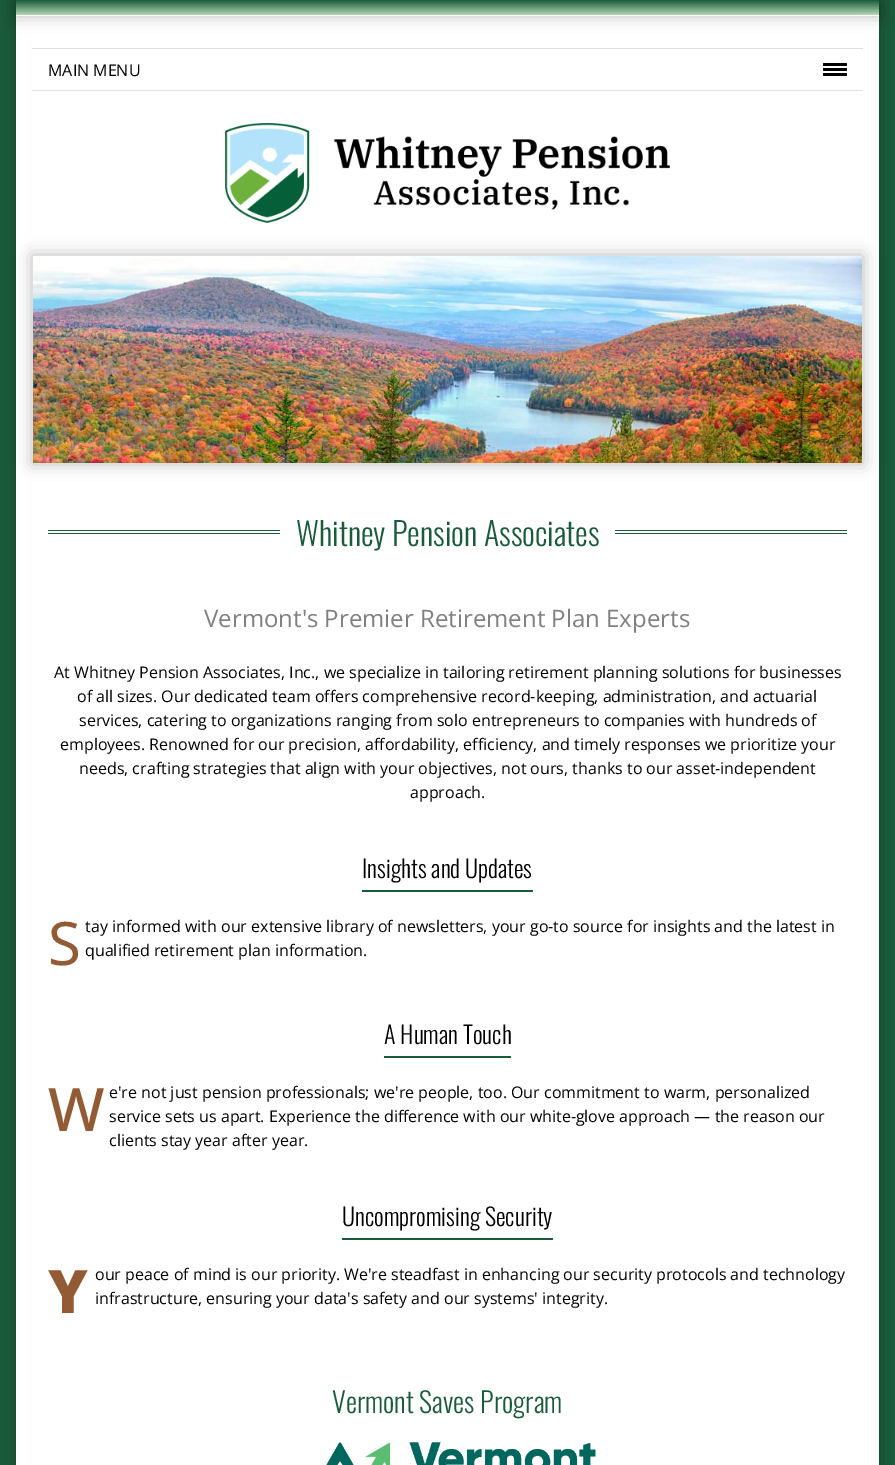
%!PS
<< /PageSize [895 1465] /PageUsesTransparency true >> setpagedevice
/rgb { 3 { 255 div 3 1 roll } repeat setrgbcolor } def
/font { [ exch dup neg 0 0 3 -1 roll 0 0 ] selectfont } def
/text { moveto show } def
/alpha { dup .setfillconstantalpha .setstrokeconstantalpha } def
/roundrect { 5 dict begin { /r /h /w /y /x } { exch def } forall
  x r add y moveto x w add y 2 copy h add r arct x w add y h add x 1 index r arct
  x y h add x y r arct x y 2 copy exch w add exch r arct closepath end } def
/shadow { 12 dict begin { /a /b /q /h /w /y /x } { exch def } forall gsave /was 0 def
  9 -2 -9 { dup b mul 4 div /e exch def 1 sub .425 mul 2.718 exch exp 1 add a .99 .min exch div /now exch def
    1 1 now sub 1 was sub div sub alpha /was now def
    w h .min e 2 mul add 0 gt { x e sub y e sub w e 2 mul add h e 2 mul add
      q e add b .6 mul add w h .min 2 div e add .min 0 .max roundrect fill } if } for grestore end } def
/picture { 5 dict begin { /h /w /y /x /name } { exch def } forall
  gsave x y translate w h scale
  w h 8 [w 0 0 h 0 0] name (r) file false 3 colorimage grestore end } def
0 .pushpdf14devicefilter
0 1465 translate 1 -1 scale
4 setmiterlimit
25 92 58 rgb
0 0 895 1465 rectfill
0 0 0 rgb
16 0 863 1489 0 8 0.25 shadow
255 255 255 rgb
16 16 863 1449 rectfill
0 0 0 rgb
16 0 863 16 0 8 0.25 shadow
gsave 16 0 moveto 863 0 rlineto 0 15 rlineto -863 0 rlineto closepath clip newpath
<< /ShadingType 2 /ColorSpace /DeviceRGB /Coords [448 0 448 15] /Extend [true true] /Function << /FunctionType 2 /Domain [0 1] /C0 [0.098 0.361 0.227] /C1 [0.702 0.839 0.702] /N 1 >> >> shfill grestore
255 255 255 rgb
16 15 863 1 rectfill
223 223 223 rgb
32 48 831 1 rectfill
32 90 831 1 rectfill
0 0 0 rgb
823 63 24 3 1 roundrect fill
823 68 24 3 1 roundrect fill
823 73 24 3 1 roundrect fill
(img_01.rgb) 225 123 445 100 picture
32 255 831 209 0 8 0.25 shadow
(img_02.rgb) 33 256 829 207 picture
25 92 58 rgb
48 530 232 1 rectfill
48 533 232 1 rectfill
615 530 232 1 rectfill
615 533 232 1 rectfill
362 890 171 2 rectfill
384 1056 127 2 rectfill
342 1238 211 2 rectfill
(img_03.rgb) 326 1442 270 23 picture
/OpenSans-Regular 16 font
0 0 0 rgb
(MAIN MENU) 48 76 text
/Oswald-Light 32 font
25 92 58 rgb
(Whitney Pension Associates) 296 546 text
/OpenSans-Regular 24 font
128 128 128 rgb
(Vermont's Premier Retirement Plan Experts) 204 627 text
/OpenSans-Regular 16 font
0 0 0 rgb
(At Whitney Pension Associates, Inc., we specialize in tailoring retirement planning solutions for businesses) 54 678 text
(of all sizes. Our dedicated team offers comprehensive record-keeping, administration, and actuarial) 77 702 text
(services, catering to organizations ranging from solo entrepreneurs to companies with hundreds of) 79 726 text
(employees. Renowned for our precision, affordability, efficiency, and timely responses we prioritize your) 60 750 text
(needs, crafting strategies that align with your objectives, not ours, thanks to our asset-independent) 79 774 text
(approach.) 410 798 text
/Oswald-Light 24 font
(Insights and Updates) 362 878 text
/NotoSans-Regular 60 font
147 91 52 rgb
(S) 48 965 text
/OpenSans-Regular 16 font
0 0 0 rgb
(tay informed with our extensive library of newsletters, your go-to source for insights and the latest in) 85 932 text
(qualified retirement plan information.) 85 956 text
/Oswald-Light 24 font
(A Human Touch) 384 1044 text
/NotoSans-Medium 60 font
147 91 52 rgb
(W) 48 1131 text
/OpenSans-Regular 16 font
0 0 0 rgb
(e're not just pension professionals; we're people, too. Our commitment to warm, personalized) 109 1098 text
(service sets us apart. Experience the difference with our white-glove approach — the reason our) 109 1122 text
(clients stay year after year.) 109 1146 text
/Oswald-Light 24 font
(Uncompromising Security) 342 1226 text
/NotoSans-Black 60 font
147 91 52 rgb
(Y) 48 1313 text
/OpenSans-Regular 16 font
0 0 0 rgb
(our peace of mind is our priority. We're steadfast in enhancing our security protocols and technology) 95 1280 text
(infrastructure, ensuring your data's safety and our systems' integrity.) 95 1304 text
/Oswald-Light 28 font
25 92 58 rgb
(Vermont Saves Program) 332 1413 text
.poppdf14devicefilter showpage
